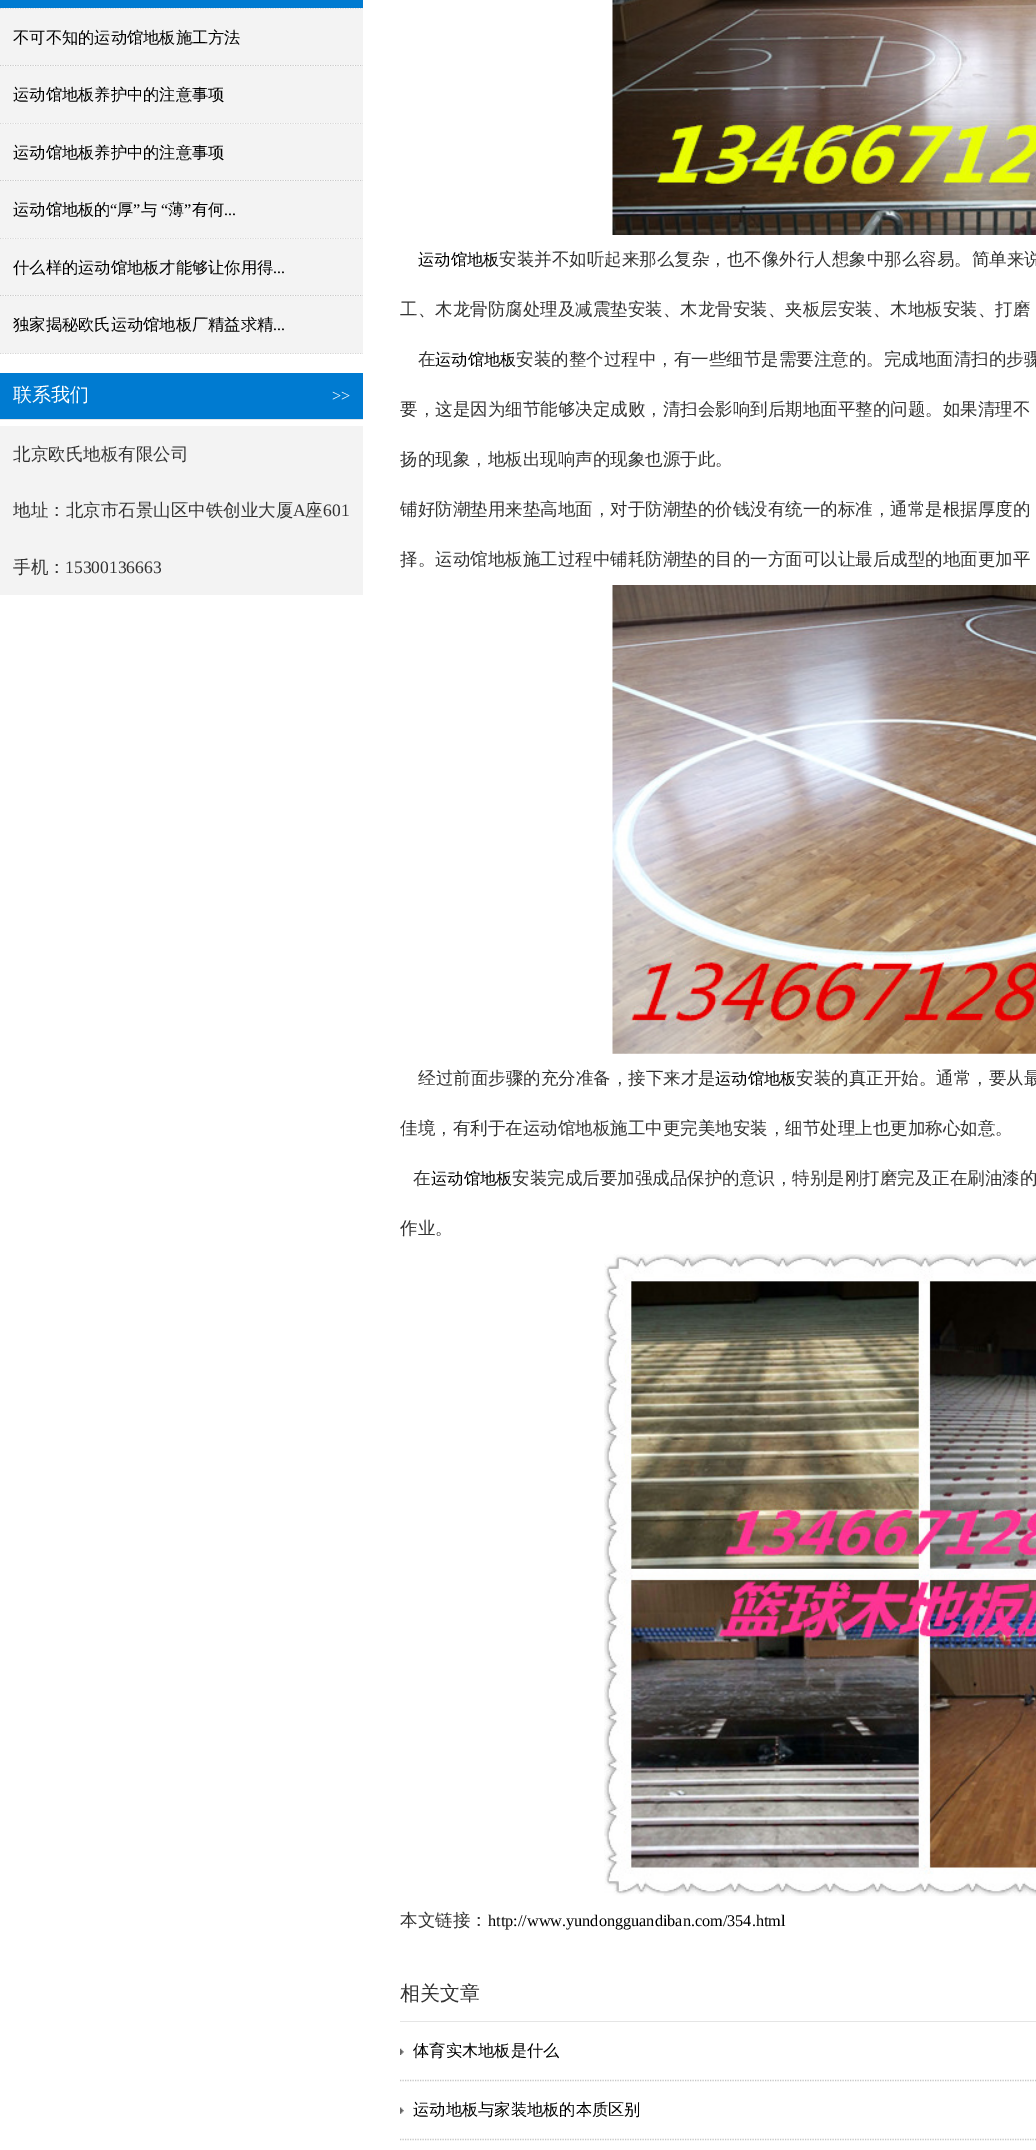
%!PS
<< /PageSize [1036 2150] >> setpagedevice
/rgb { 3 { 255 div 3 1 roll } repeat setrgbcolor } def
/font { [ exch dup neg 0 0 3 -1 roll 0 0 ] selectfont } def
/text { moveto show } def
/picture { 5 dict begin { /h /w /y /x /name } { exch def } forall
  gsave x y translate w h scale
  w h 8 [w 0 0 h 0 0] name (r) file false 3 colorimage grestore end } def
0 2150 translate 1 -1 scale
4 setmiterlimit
255 255 255 rgb
0 0 1036 2150 rectfill
gsave
0 0 363 608 rectclip
199 199 199 rgb
1.2 setlinewidth
[1.25 1.25] 0 setdash
0 8 moveto 375 0 rlineto stroke
grestore
0 123 209 rgb
0 0 363 8 rectfill
gsave
0 0 363 608 rectclip
199 199 199 rgb
1.2 setlinewidth
[1.25 1.25] 0 setdash
0 65.5 moveto 375 0 rlineto stroke
grestore
243 243 243 rgb
0 9 363 56 rectfill
gsave
0 0 363 608 rectclip
199 199 199 rgb
1.2 setlinewidth
[1.25 1.25] 0 setdash
0 123 moveto 375 0 rlineto stroke
grestore
0 66 363 57 rectfill
gsave
0 0 363 608 rectclip
199 199 199 rgb
1.2 setlinewidth
[1.25 1.25] 0 setdash
0 180.5 moveto 375 0 rlineto stroke
grestore
0 124 363 56 rectfill
gsave
0 0 363 608 rectclip
199 199 199 rgb
1.2 setlinewidth
[1.25 1.25] 0 setdash
0 238 moveto 375 0 rlineto stroke
grestore
0 181 363 57 rectfill
gsave
0 0 363 608 rectclip
199 199 199 rgb
1.2 setlinewidth
[1.25 1.25] 0 setdash
0 295.5 moveto 375 0 rlineto stroke
grestore
0 239 363 56 rectfill
gsave
0 0 363 608 rectclip
199 199 199 rgb
1.2 setlinewidth
[1.25 1.25] 0 setdash
0 353 moveto 375 0 rlineto stroke
grestore
0 296 363 57 rectfill
0 123 209 rgb
0 373 363 46 rectfill
229 229 229 rgb
0 419 363 1 rectfill
243 243 243 rgb
0 426 363 169 rectfill
(img_01.rgb) 612 0 424 235 picture
(img_02.rgb) 612 585 424 469 picture
(img_03.rgb) 604 1254 432 642 picture
229 229 229 rgb
400 2021 636 1 rectfill
(img_04.rgb) 400 2048 4 7 picture
199 199 199 rgb
1.2 setlinewidth
[1.25 1.25] 0 setdash
400 2080.5 moveto 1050 0 rlineto stroke
(img_05.rgb) 400 2107 4 7 picture
400 2139.5 moveto 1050 0 rlineto stroke
/WenQuanYiZenHei-Medium 16.25 font
0 0 0 rgb
(不可不知的运动馆地板施工方法) 13 43 text
(运动馆地板养护中的注意事项) 13 100 text
(运动馆地板养护中的注意事项) 13 158 text
(运动馆地板的) 13 215 text
/LiberationSerif-Regular 16.25 font
(“) 110 215 text
/WenQuanYiZenHei-Medium 16.25 font
(厚) 117 215 text
/LiberationSerif-Regular 16.25 font
(”) 133 215 text
/WenQuanYiZenHei-Medium 16.25 font
(与) 141 215 text
/LiberationSerif-Regular 16.25 font
(“) 161 215 text
/WenQuanYiZenHei-Medium 16.25 font
(薄) 168 215 text
/LiberationSerif-Regular 16.25 font
(”) 184 215 text
/WenQuanYiZenHei-Medium 16.25 font
(有何) 192 215 text
/LiberationSerif-Regular 16.25 font
(...) 224 215 text
/WenQuanYiZenHei-Medium 16.25 font
(什么样的运动馆地板才能够让你用得) 13 273 text
/LiberationSerif-Regular 16.25 font
(...) 273 273 text
/WenQuanYiZenHei-Medium 16.25 font
(独家揭秘欧氏运动馆地板厂精益求精) 13 330 text
/LiberationSerif-Regular 16.25 font
(...) 273 330 text
/WenQuanYiZenHei-Medium 19 font
255 255 255 rgb
(联系我们) 13 401 text
/LiberationSerif-Regular 16.25 font
(>>) 332 401 text
/WenQuanYiZenHei-Medium 17.5 font
51 51 51 rgb
(北京欧氏地板有限公司) 13 460 text
(地址：北京市石景山区中铁创业大厦) 13 516 text
/LiberationSerif-Regular 17.5 font
(A) 293 516 text
/WenQuanYiZenHei-Medium 17.5 font
(座) 305 516 text
/LiberationSerif-Regular 17.5 font
(601) 323 516 text
/WenQuanYiZenHei-Medium 17.5 font
(手机：) 13 573 text
/LiberationSerif-Regular 17.5 font
(15300136663) 65 573 text
/WenQuanYiZenHei-Medium 16.25 font
0 0 0 rgb
(运动馆地板) 418 265 text
/WenQuanYiZenHei-Medium 17.5 font
51 51 51 rgb
(安装并不如听起来那么复杂，也不像外行人想象中那么容易。简单来说) 499 265 text
(工、木龙骨防腐处理及减震垫安装、木龙骨安装、夹板层安装、木地板安装、打磨) 400 315 text
(在) 418 365 text
/WenQuanYiZenHei-Medium 16.25 font
0 0 0 rgb
(运动馆地板) 435 365 text
/WenQuanYiZenHei-Medium 17.5 font
51 51 51 rgb
(安装的整个过程中，有一些细节是需要注意的。完成地面清扫的步骤) 516 365 text
(要，这是因为细节能够决定成败，清扫会影响到后期地面平整的问题。如果清理不) 400 415 text
(扬的现象，地板出现响声的现象也源于此。) 400 465 text
(铺好防潮垫用来垫高地面，对于防潮垫的价钱没有统一的标准，通常是根据厚度的) 400 515 text
(择。运动馆地板施工过程中铺耗防潮垫的目的一方面可以让最后成型的地面更加平) 400 565 text
(经过前面步骤的充分准备，接下来才是) 418 1084 text
/WenQuanYiZenHei-Medium 16.25 font
0 0 0 rgb
(运动馆地板) 715 1084 text
/WenQuanYiZenHei-Medium 17.5 font
51 51 51 rgb
(安装的真正开始。通常，要从最) 796 1084 text
(佳境，有利于在运动馆地板施工中更完美地安装，细节处理上也更加称心如意。) 400 1134 text
(在) 413 1184 text
/WenQuanYiZenHei-Medium 16.25 font
0 0 0 rgb
(运动馆地板) 431 1184 text
/WenQuanYiZenHei-Medium 17.5 font
51 51 51 rgb
(安装完成后要加强成品保护的意识，特别是刚打磨完及正在刷油漆的) 512 1184 text
(作业。) 400 1234 text
(本文链接：) 400 1926 text
/LiberationSerif-Regular 16.25 font
0 0 0 rgb
(http://www.yundongguandiban.com/354.html) 488 1926 text
/WenQuanYiZenHei-Medium 20 font
51 51 51 rgb
(相关文章) 400 2000 text
/WenQuanYiZenHei-Medium 16.25 font
0 0 0 rgb
(体育实木地板是什么) 413 2056 text
(运动地板与家装地板的本质区别) 413 2115 text
showpage
